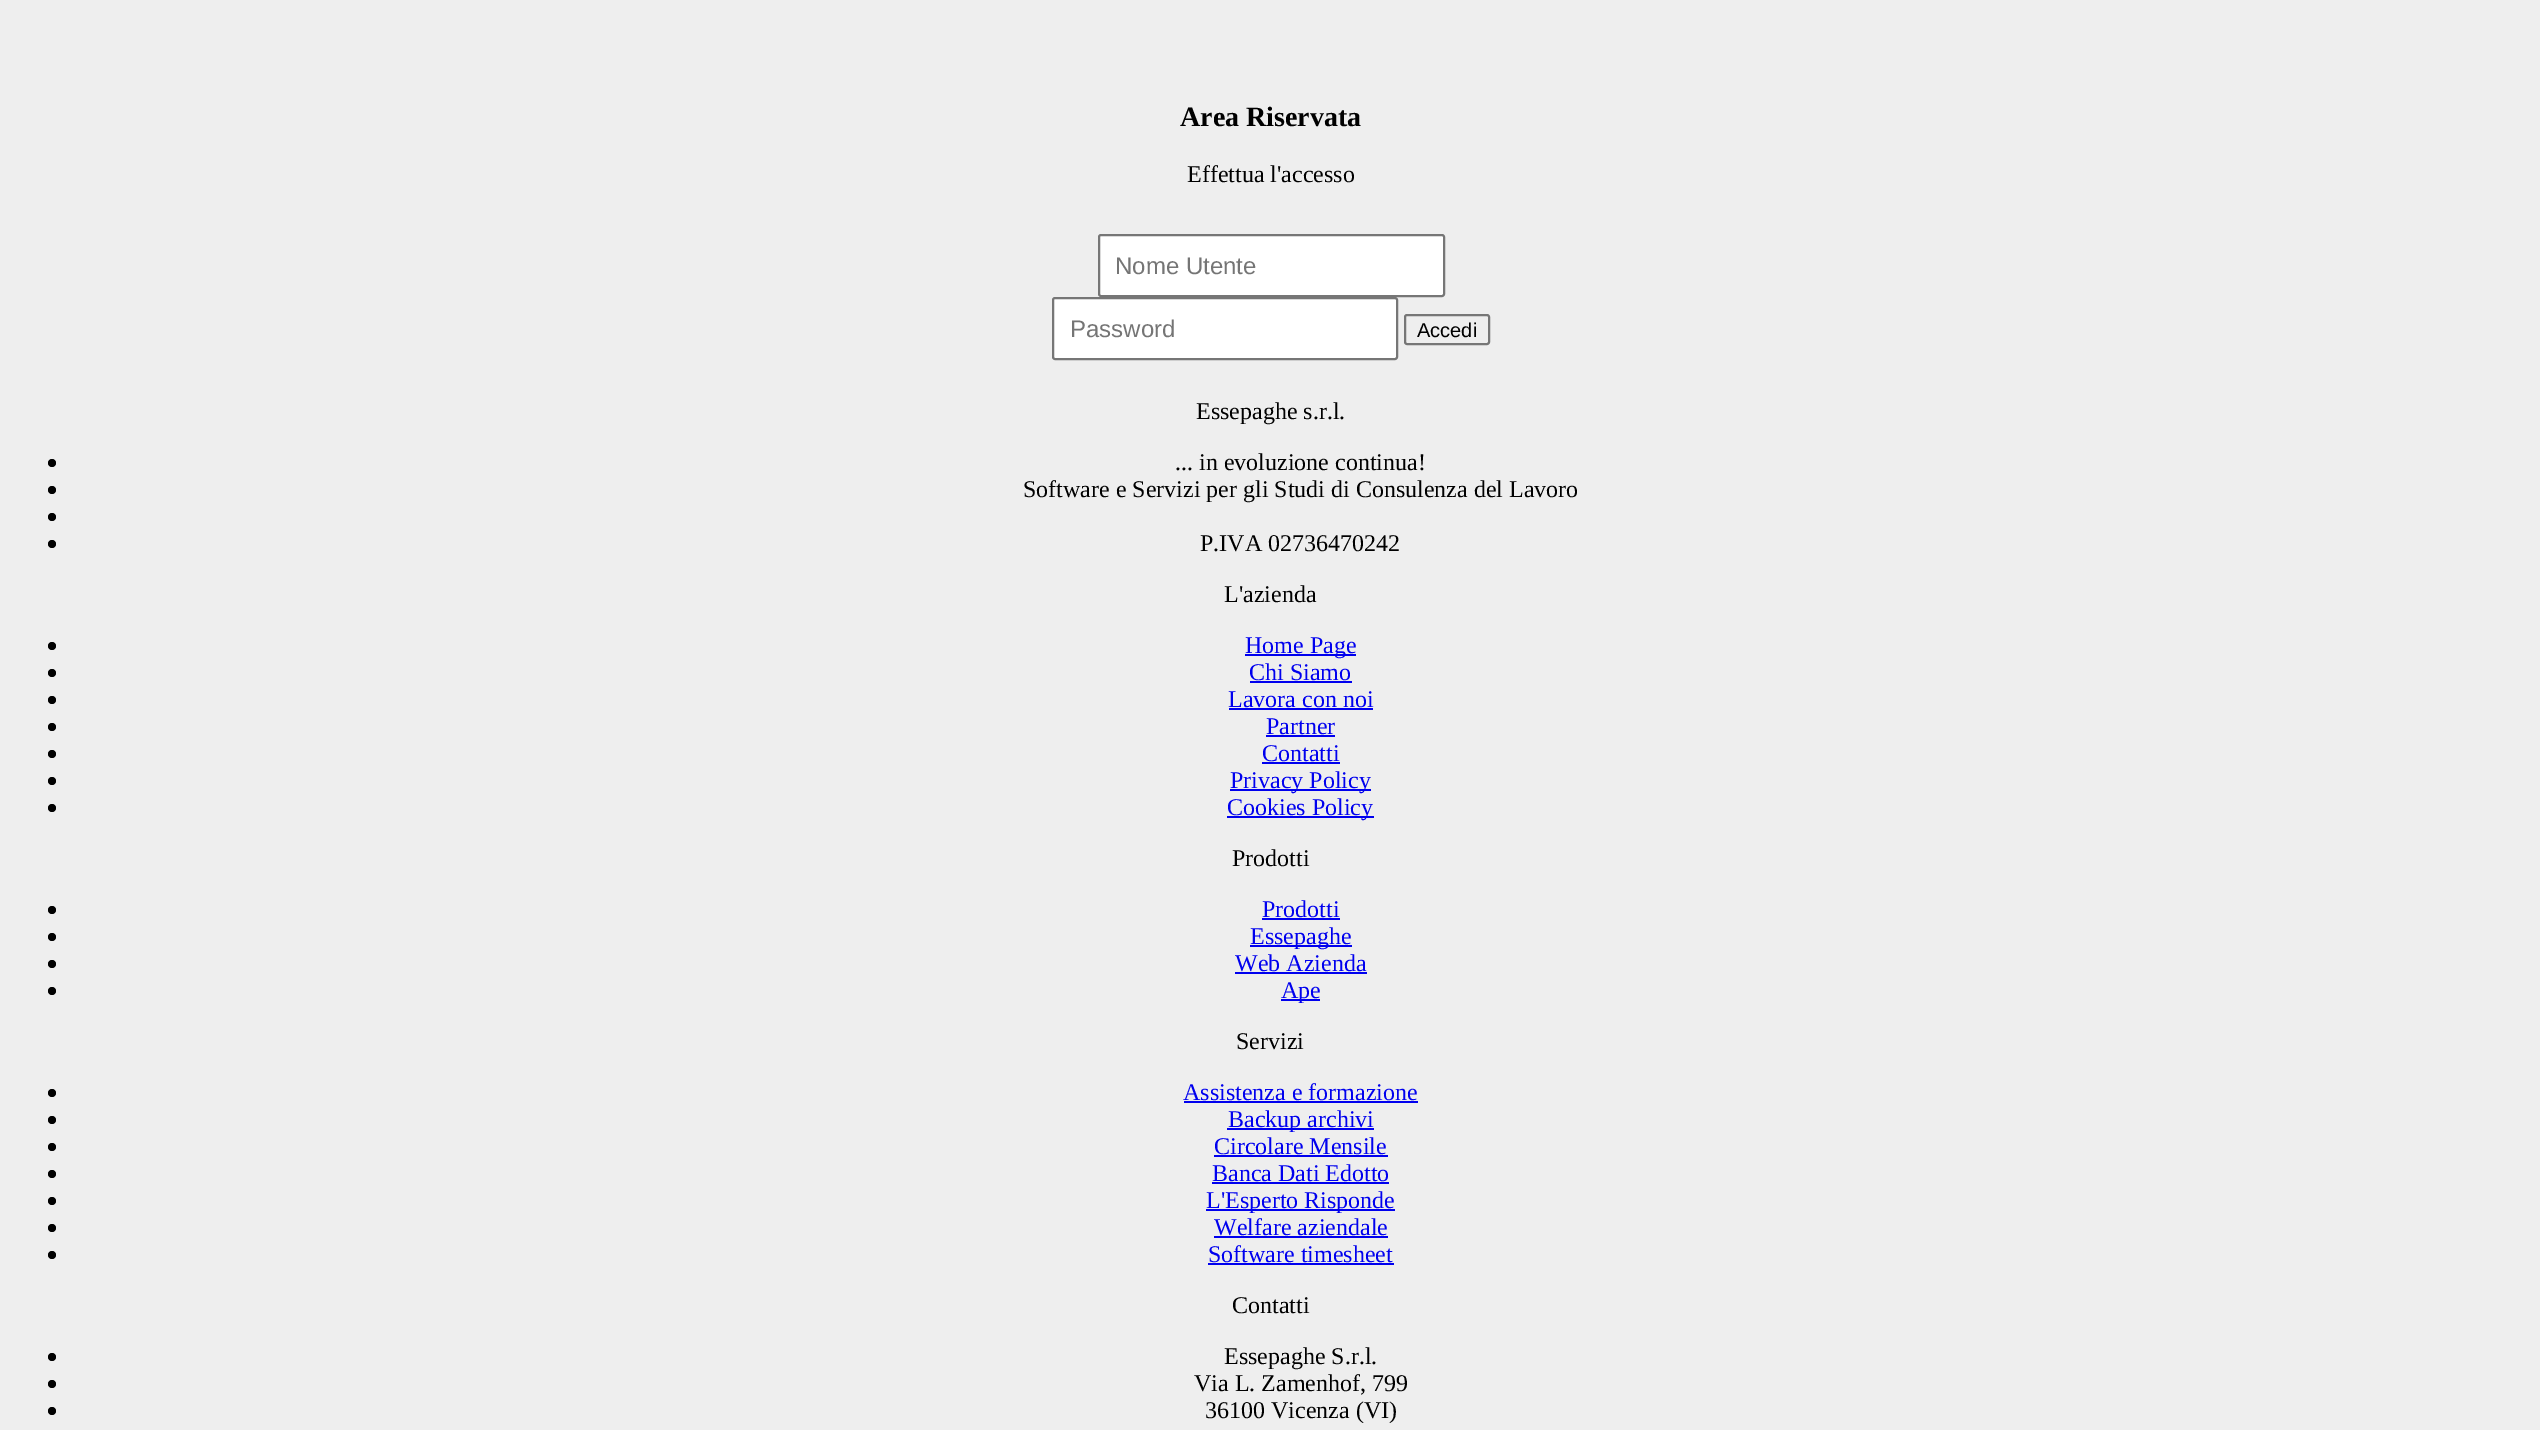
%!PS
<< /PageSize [2540 1430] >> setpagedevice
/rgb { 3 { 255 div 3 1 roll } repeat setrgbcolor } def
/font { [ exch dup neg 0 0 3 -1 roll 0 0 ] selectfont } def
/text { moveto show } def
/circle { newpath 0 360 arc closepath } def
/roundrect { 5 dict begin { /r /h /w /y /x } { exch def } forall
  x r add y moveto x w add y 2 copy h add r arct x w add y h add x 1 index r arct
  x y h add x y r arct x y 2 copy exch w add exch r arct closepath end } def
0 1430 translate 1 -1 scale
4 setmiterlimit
238 238 238 rgb
0 0 2540 1430 rectfill
255 255 255 rgb
1099 235 345 61 2 roundrect gsave fill grestore
118 118 118 rgb
2 setlinewidth
stroke
255 255 255 rgb
1053 298 344 61 2 roundrect gsave fill grestore
118 118 118 rgb
stroke
1405 315 84 29 2 roundrect stroke
0 0 0 rgb
52 463 4 circle fill
52 490 4 circle fill
52 517 4 circle fill
52 544 4 circle fill
52 646 4 circle fill
0 0 238 rgb
1245 654 111 2 rectfill
0 0 0 rgb
52 673 4 circle fill
0 0 238 rgb
1250 681 102 2 rectfill
0 0 0 rgb
52 700 4 circle fill
0 0 238 rgb
1229 708 144 2 rectfill
0 0 0 rgb
52 727 4 circle fill
0 0 238 rgb
1266 735 69 2 rectfill
0 0 0 rgb
52 754 4 circle fill
0 0 238 rgb
1262 762 78 2 rectfill
0 0 0 rgb
52 781 4 circle fill
0 0 238 rgb
1230 789 141 2 rectfill
0 0 0 rgb
52 808 4 circle fill
0 0 238 rgb
1227 816 147 2 rectfill
0 0 0 rgb
52 910 4 circle fill
0 0 238 rgb
1262 918 78 2 rectfill
0 0 0 rgb
52 937 4 circle fill
0 0 238 rgb
1250 945 102 2 rectfill
0 0 0 rgb
52 964 4 circle fill
0 0 238 rgb
1235 972 132 2 rectfill
0 0 0 rgb
52 991 4 circle fill
0 0 238 rgb
1281 999 39 2 rectfill
0 0 0 rgb
52 1093 4 circle fill
0 0 238 rgb
1184 1101 234 2 rectfill
0 0 0 rgb
52 1120 4 circle fill
0 0 238 rgb
1227 1128 147 2 rectfill
0 0 0 rgb
52 1147 4 circle fill
0 0 238 rgb
1214 1155 174 2 rectfill
0 0 0 rgb
52 1174 4 circle fill
0 0 238 rgb
1212 1182 177 2 rectfill
0 0 0 rgb
52 1201 4 circle fill
0 0 238 rgb
1206 1209 189 2 rectfill
0 0 0 rgb
52 1228 4 circle fill
0 0 238 rgb
1214 1236 174 2 rectfill
0 0 0 rgb
52 1255 4 circle fill
0 0 238 rgb
1208 1263 186 2 rectfill
0 0 0 rgb
52 1357 4 circle fill
52 1384 4 circle fill
52 1411 4 circle fill
/LiberationSerif-Bold 28 font
(Area Riservata) 1180 126 text
/LiberationSerif-Regular 24 font
(Effettua l'accesso) 1187 182 text
/LiberationSans-Regular 24 font
117 117 117 rgb
(Nome Utente) 1115 274 text
(Password) 1070 337 text
/LiberationSans-Regular 20 font
0 0 0 rgb
(Accedi) 1417 337 text
/LiberationSerif-Regular 24 font
(Essepaghe s.r.l.) 1196 419 text
(... in evoluzione continua!) 1175 470 text
(Software e Servizi per gli Studi di Consulenza del Lavoro) 1023 497 text
(P.IVA 02736470242) 1200 551 text
(L'azienda) 1224 602 text
0 0 238 rgb
(Home Page) 1245 653 text
(Chi Siamo) 1249 680 text
(Lavora con noi) 1228 707 text
(Partner) 1266 734 text
(Contatti) 1262 761 text
(Privacy Policy) 1230 788 text
(Cookies Policy) 1227 815 text
0 0 0 rgb
(Prodotti) 1232 866 text
0 0 238 rgb
(Prodotti) 1262 917 text
(Essepaghe) 1250 944 text
(Web Azienda) 1235 971 text
(Ape) 1281 998 text
0 0 0 rgb
(Servizi) 1236 1049 text
0 0 238 rgb
(Assistenza e formazione) 1183 1100 text
(Backup archivi) 1228 1127 text
(Circolare Mensile) 1214 1154 text
(Banca Dati Edotto) 1212 1181 text
(L'Esperto Risponde) 1206 1208 text
(Welfare aziendale) 1214 1235 text
(Software timesheet) 1208 1262 text
0 0 0 rgb
(Contatti) 1232 1313 text
(Essepaghe S.r.l.) 1224 1364 text
(Via L. Zamenhof, 799) 1194 1391 text
(36100 Vicenza \(VI\)) 1205 1418 text
showpage
